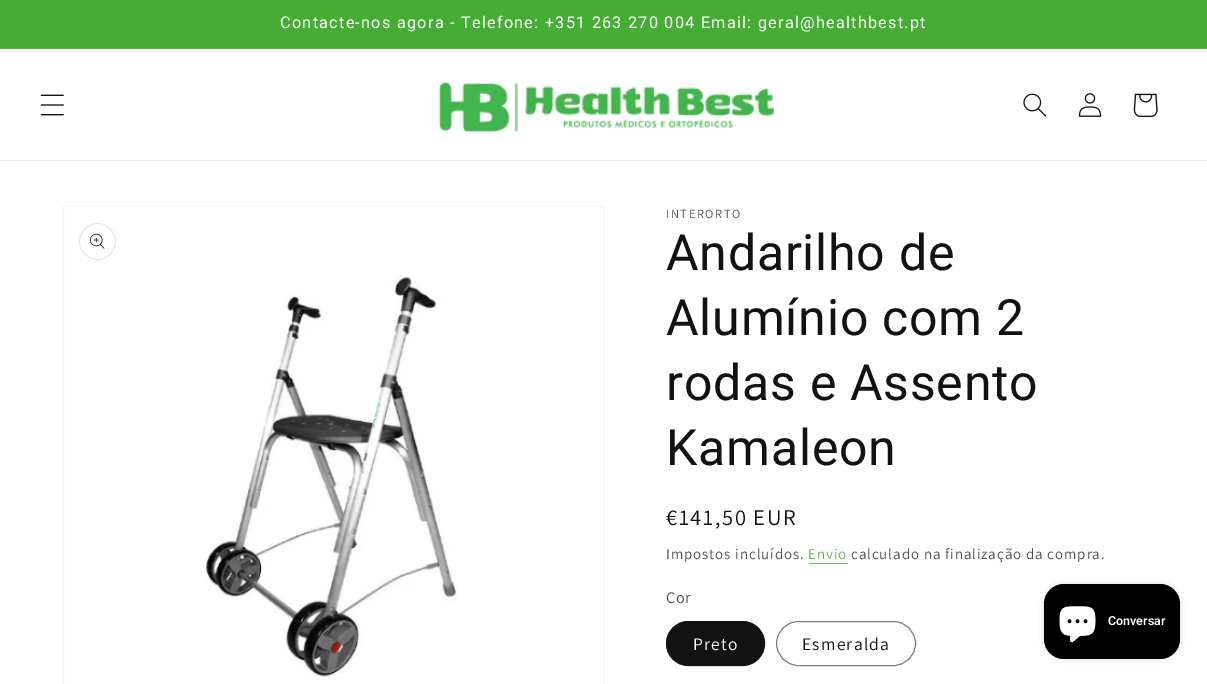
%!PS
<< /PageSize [1207 684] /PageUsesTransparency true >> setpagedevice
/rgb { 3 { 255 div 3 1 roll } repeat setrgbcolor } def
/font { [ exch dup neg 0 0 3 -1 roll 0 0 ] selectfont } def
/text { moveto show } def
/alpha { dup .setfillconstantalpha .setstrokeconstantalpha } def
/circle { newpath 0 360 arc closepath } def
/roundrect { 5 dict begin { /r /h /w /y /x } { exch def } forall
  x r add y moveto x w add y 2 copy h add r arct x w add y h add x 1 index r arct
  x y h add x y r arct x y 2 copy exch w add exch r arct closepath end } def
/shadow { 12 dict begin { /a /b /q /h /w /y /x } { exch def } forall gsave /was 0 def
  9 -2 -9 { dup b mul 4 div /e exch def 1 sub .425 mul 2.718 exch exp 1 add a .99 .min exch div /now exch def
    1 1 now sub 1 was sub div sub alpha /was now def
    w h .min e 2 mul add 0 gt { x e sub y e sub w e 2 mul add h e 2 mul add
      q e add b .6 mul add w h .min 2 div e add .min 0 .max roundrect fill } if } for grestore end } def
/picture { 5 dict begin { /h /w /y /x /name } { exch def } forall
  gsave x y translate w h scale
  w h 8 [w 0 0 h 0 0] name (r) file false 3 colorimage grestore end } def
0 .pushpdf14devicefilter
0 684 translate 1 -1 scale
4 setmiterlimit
255 255 255 rgb
0 0 1207 684 rectfill
69 172 52 rgb
0 0 1207 48 rectfill
84 179 68 rgb
0 48 1207 1 rectfill
236 236 236 rgb
0 160 1207 1 rectfill
(img_01.rgb) 40 94 24 22 picture
(img_02.rgb) 438 82 337 51 picture
(img_03.rgb) 1023 93 24 24 picture
(img_04.rgb) 1078 93 24 24 picture
(img_05.rgb) 1133 93 25 24 picture
243 243 243 rgb
63.5 206.5 540 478 rectstroke
231 231 231 rgb
97.5 241.5 18 circle stroke
(img_06.rgb) 90 233 15 16 picture
(img_07.rgb) 206 276 252 401 picture
97 184 82 rgb
809 563 39 1 rectfill
18 18 18 rgb
666 621 99 45 22.5 roundrect fill
0.55 alpha
666.5 621.5 98 44 22 roundrect stroke
1 alpha
125 125 125 rgb
776.5 621.5 139 44 22 roundrect stroke
0 0 0 rgb
1044 584 136 75 20 3 0.15 shadow
1044 584 136 75 20 roundrect fill
(img_08.rgb) 1059 606 37 37 picture
/Roboto-Regular 16.25 font
255 255 255 rgb
280 28 moveto 1.25 0 (Contacte-nos agora - Telefone: +351 263 270 004 Email: geral@healthbest.pt) ashow
/Assistant-Regular 12.5 font
77 77 77 rgb
666 218 moveto 1.6 0 (INTERORTO) ashow
/Roboto-Regular 50 font
18 18 18 rgb
666 270 moveto 0.75 0 (Andarilho de) ashow
666 335 moveto 0.75 0 (Alumínio com 2) ashow
666 400 moveto 0.75 0 (rodas e Assento) ashow
666 465 moveto 0.75 0 (Kamaleon) ashow
/Assistant-Regular 22.5 font
666 525 moveto 1.6 0 (€141,50 EUR) ashow
/Assistant-Regular 15 font
77 77 77 rgb
666 559 moveto 0.9 0 (Impostos incluídos.) ashow
97 184 82 rgb
808 559 moveto 0.9 0 (Envio) ashow
77 77 77 rgb
851 559 moveto 0.9 0 (calculado na finalização da compra.) ashow
/Assistant-Regular 16.25 font
666 603 moveto 0.5 0 (Cor) ashow
/Assistant-Regular 17.5 font
255 255 255 rgb
693 650 moveto 1.25 0 (Preto) ashow
18 18 18 rgb
802 650 moveto 1.25 0 (Esmeralda) ashow
/Roboto-SemiBold 12.5 font
255 255 255 rgb
(Conversar) 1108 625 text
.poppdf14devicefilter showpage
